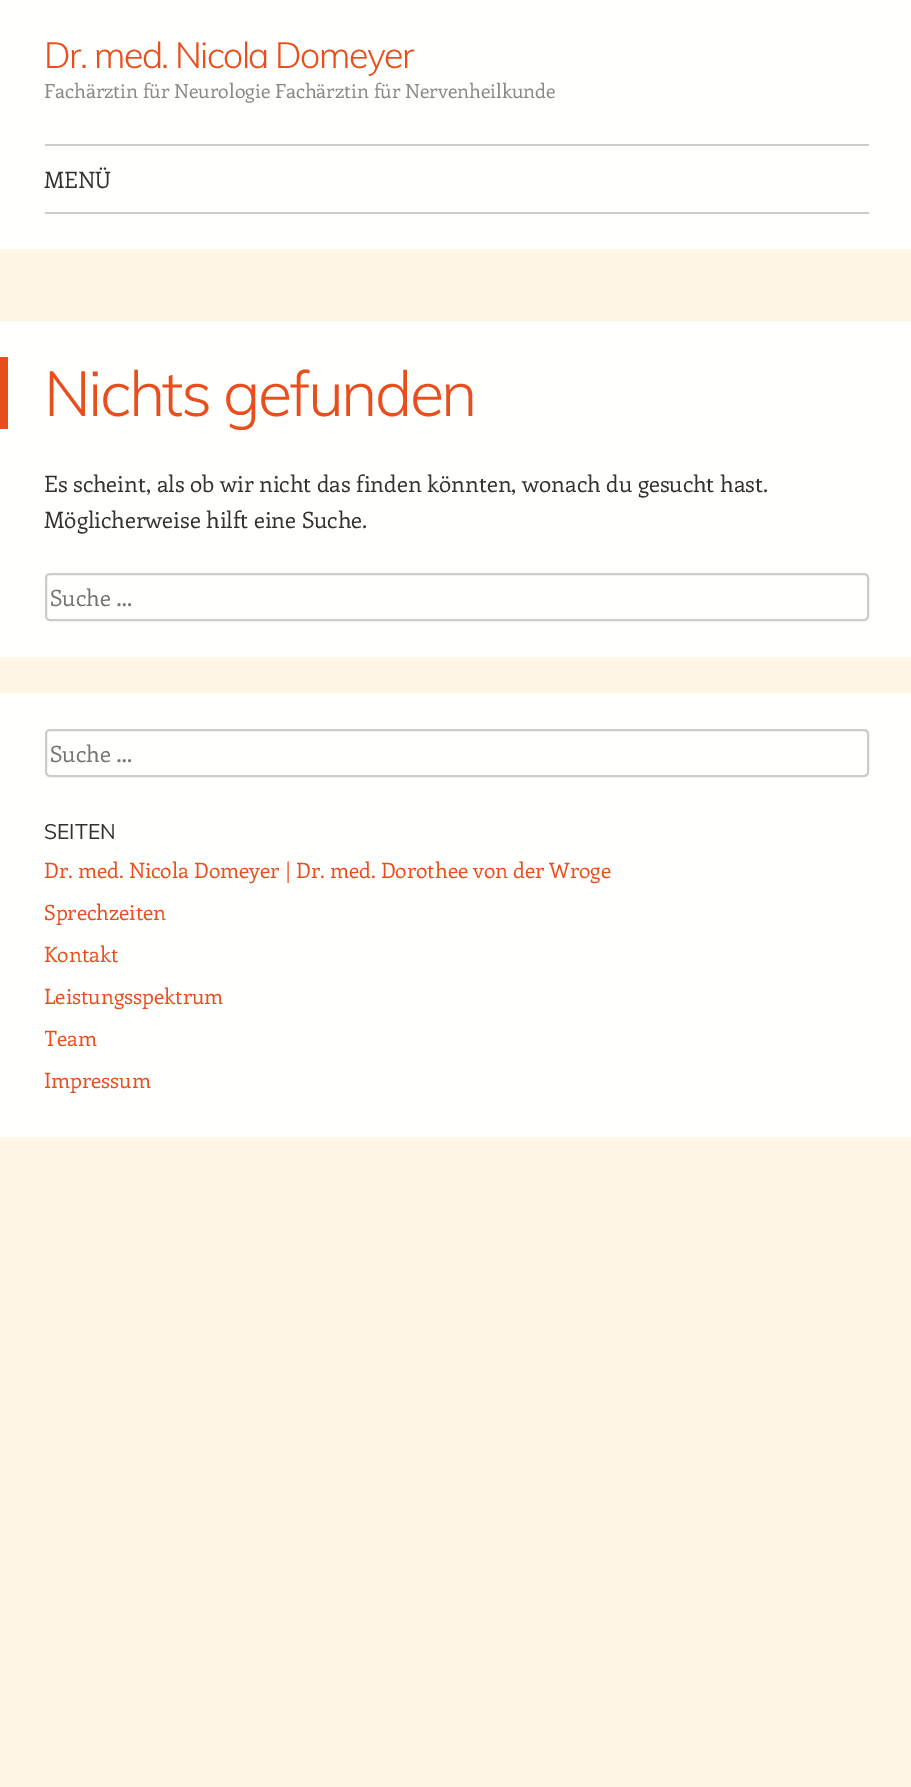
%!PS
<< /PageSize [911 1787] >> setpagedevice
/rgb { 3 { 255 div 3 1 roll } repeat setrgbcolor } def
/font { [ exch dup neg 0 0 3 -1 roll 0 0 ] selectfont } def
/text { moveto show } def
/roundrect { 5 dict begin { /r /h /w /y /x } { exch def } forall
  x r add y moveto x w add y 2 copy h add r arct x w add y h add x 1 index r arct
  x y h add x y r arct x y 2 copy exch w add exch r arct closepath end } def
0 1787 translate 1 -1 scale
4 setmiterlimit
253 246 228 rgb
0 0 911 1787 rectfill
255 255 254 rgb
0 0 911 249 rectfill
204 204 203 rgb
45 144 824 2 rectfill
45 212 824 2 rectfill
255 255 254 rgb
0 321 911 336 rectfill
233 79 29 rgb
0 357 8 72 rectfill
204 204 203 rgb
2 setlinewidth
46 574 822 46 4 roundrect stroke
255 255 254 rgb
0 693 911 444 rectfill
204 204 203 rgb
46 730 822 46 4 roundrect stroke
/Muli-Light 36 font
233 79 29 rgb
44 68 moveto -1.6 0 (Dr. med. Nicola Domeyer) ashow
/Enriqueta-Regular 19.5 font
140 136 133 rgb
(Fachärztin für Neurologie Fachärztin für Nervenheilkunde) 44 98 text
/Enriqueta-Regular 22.5 font
54 49 45 rgb
(MENÜ) 44 188 text
/Muli-Light 63 font
233 79 29 rgb
44 416 moveto -2.5 0 (Nichts gefunden) ashow
/Enriqueta-Regular 22.5 font
54 49 45 rgb
(Es scheint, als ob wir nicht das finden könnten, wonach du gesucht hast.) 44 492 text
(Möglicherweise hilft eine Suche.) 44 528 text
117 117 117 rgb
(Suche …) 50 606 text
(Suche …) 50 762 text
/Muli-Regular 21 font
54 49 45 rgb
(SEITEN) 44 839 text
/Enriqueta-Regular 21 font
233 79 29 rgb
(Dr. med. Nicola Domeyer | Dr. med. Dorothee von der Wroge) 44 878 text
(Sprechzeiten) 44 920 text
(Kontakt) 44 962 text
(Leistungsspektrum) 44 1004 text
gsave
45 813 824 288 rectclip
(Team) 44 1046 text
grestore
(Impressum) 44 1088 text
showpage
